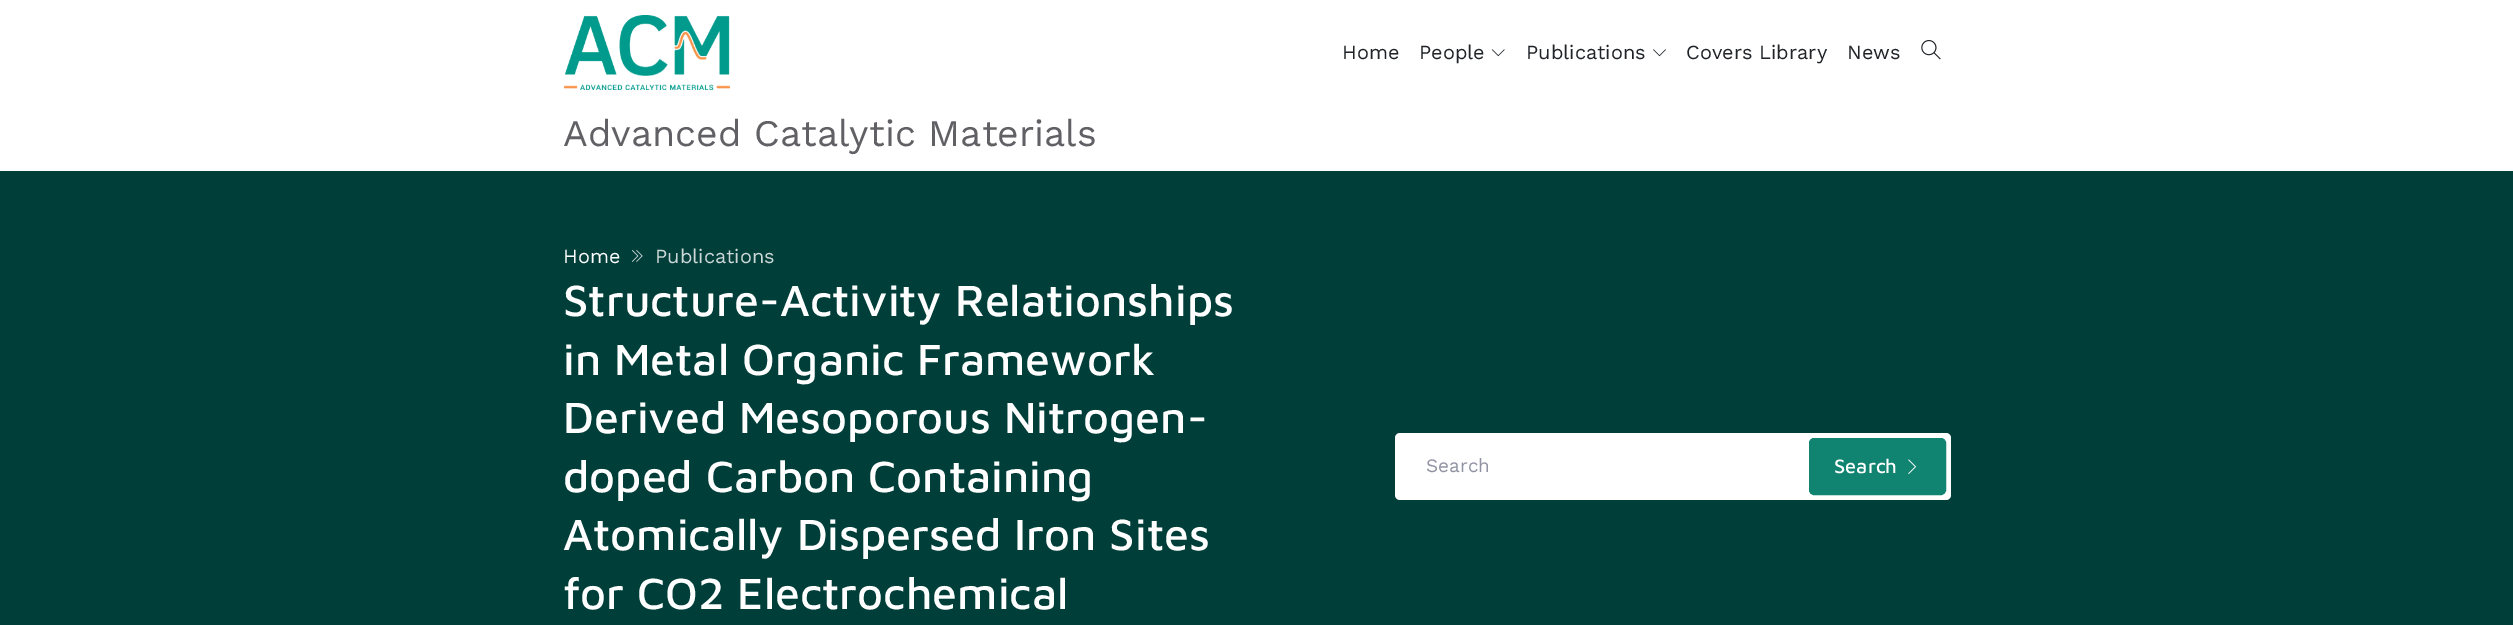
%!PS
<< /PageSize [2513 625] >> setpagedevice
/rgb { 3 { 255 div 3 1 roll } repeat setrgbcolor } def
/font { [ exch dup neg 0 0 3 -1 roll 0 0 ] selectfont } def
/text { moveto show } def
/roundrect { 5 dict begin { /r /h /w /y /x } { exch def } forall
  x r add y moveto x w add y 2 copy h add r arct x w add y h add x 1 index r arct
  x y h add x y r arct x y 2 copy exch w add exch r arct closepath end } def
/picture { 5 dict begin { /h /w /y /x /name } { exch def } forall
  gsave x y translate w h scale
  w h 8 [w 0 0 h 0 0] name (r) file false 3 colorimage grestore end } def
0 625 translate 1 -1 scale
4 setmiterlimit
255 255 255 rgb
0 0 2513 625 rectfill
(img_01.rgb) 563 15 167 75 picture
(img_02.rgb) 1491 49 14 8 picture
(img_03.rgb) 1653 49 13 8 picture
(img_04.rgb) 1921 40 20 20 picture
0 62 57 rgb
0 171 2513 454 rectfill
(img_05.rgb) 632 250 11 12 picture
255 255 255 rgb
1395 433 556 67 5 roundrect fill
17 131 113 rgb
1809.5 438.5 136 56 4.5 roundrect gsave fill grestore
stroke
(img_06.rgb) 1908 459 9 15 picture
/WorkSans-Regular 20 font
32 36 40 rgb
(Home) 1342 59 text
(People) 1419 59 text
(Publications) 1526 59 text
(Covers Library) 1686 59 text
(News) 1847 59 text
/WorkSans-Regular 37.5 font
96 96 101 rgb
(Advanced Catalytic Materials) 563 146 text
/WorkSans-Regular 20 font
255 255 255 rgb
(Home) 563 263 text
204 216 215 rgb
(Publications) 655 263 text
/MavenPro-Medium 45 font
255 255 255 rgb
(Structure-Activity Relationships) 563 316 text
(in Metal Organic Framework) 563 375 text
(Derived Mesoporous Nitrogen-) 563 433 text
(doped Carbon Containing) 563 492 text
(Atomically Dispersed Iron Sites) 563 550 text
(for CO2 Electrochemical) 563 609 text
/WorkSans-Regular 19 font
145 146 163 rgb
(Search) 1426 472 text
/MavenPro-Medium 20 font
255 255 255 rgb
(Search) 1834 473 text
showpage
